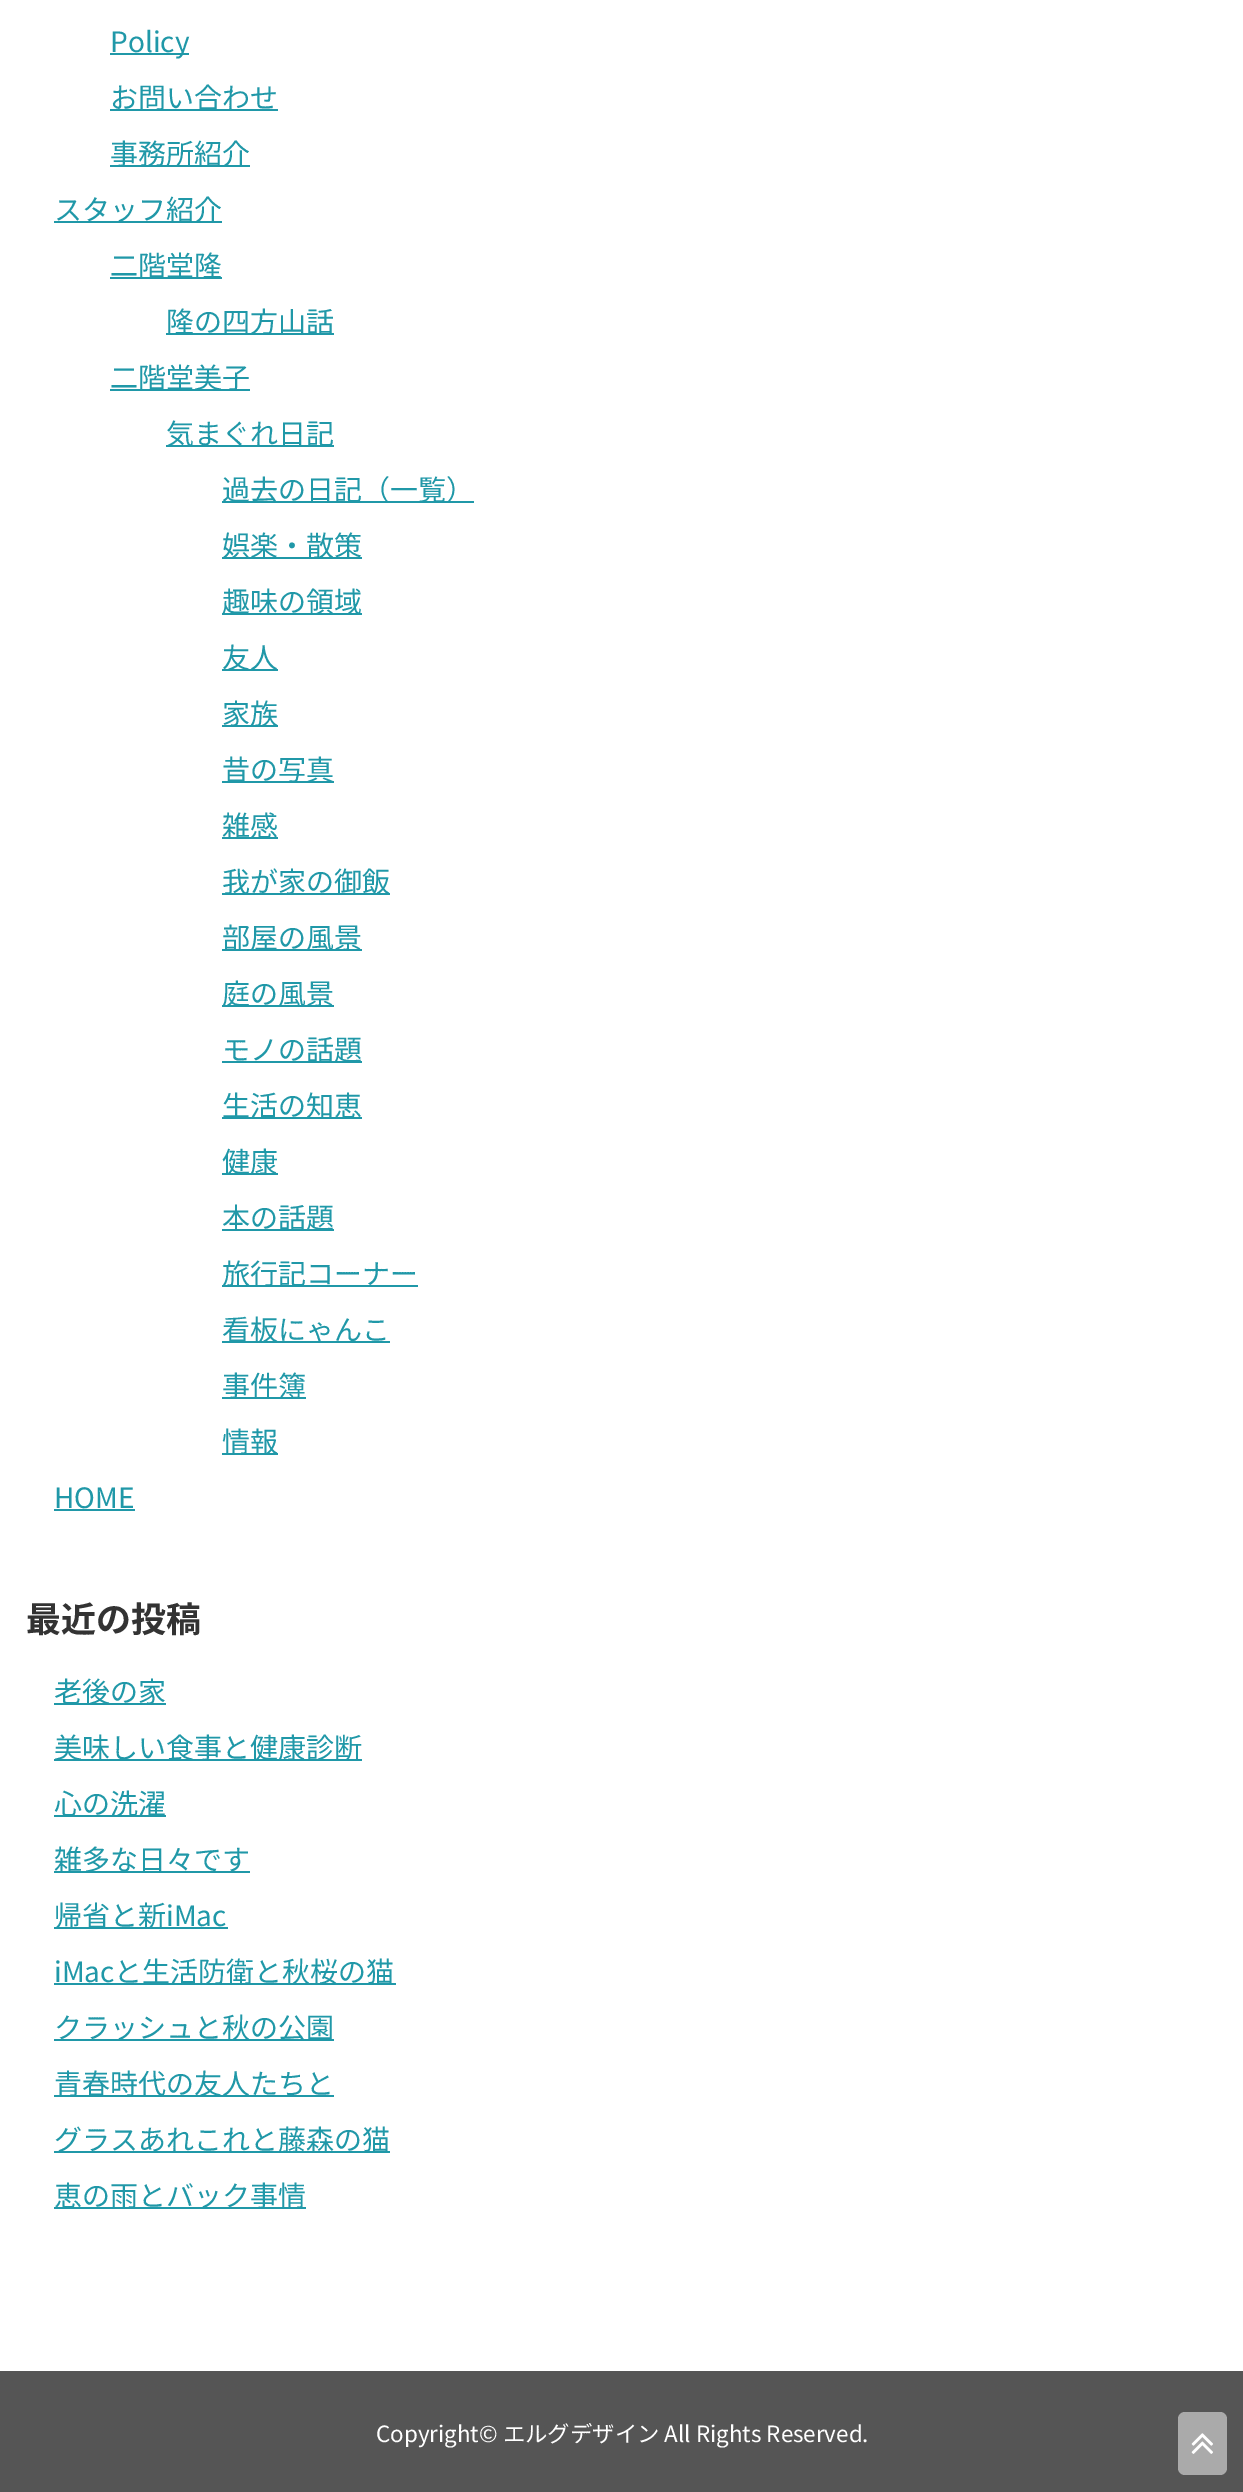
%!PS
<< /PageSize [1243 2492] >> setpagedevice
/rgb { 3 { 255 div 3 1 roll } repeat setrgbcolor } def
/font { [ exch dup neg 0 0 3 -1 roll 0 0 ] selectfont } def
/text { moveto show } def
/roundrect { 5 dict begin { /r /h /w /y /x } { exch def } forall
  x r add y moveto x w add y 2 copy h add r arct x w add y h add x 1 index r arct
  x y h add x y r arct x y 2 copy exch w add exch r arct closepath end } def
/picture { 5 dict begin { /h /w /y /x /name } { exch def } forall
  gsave x y translate w h scale
  w h 8 [w 0 0 h 0 0] name (r) file false 3 colorimage grestore end } def
0 2492 translate 1 -1 scale
4 setmiterlimit
255 255 255 rgb
0 0 1243 2492 rectfill
32 152 168 rgb
110 53 79 2 rectfill
110 109 168 2 rectfill
110 165 140 2 rectfill
54 221 168 2 rectfill
110 277 112 2 rectfill
166 333 168 2 rectfill
110 389 140 2 rectfill
166 445 168 2 rectfill
222 501 252 2 rectfill
222 557 140 2 rectfill
222 613 140 2 rectfill
222 669 56 2 rectfill
222 725 56 2 rectfill
222 781 112 2 rectfill
222 837 56 2 rectfill
222 893 168 2 rectfill
222 949 140 2 rectfill
222 1005 112 2 rectfill
222 1061 140 2 rectfill
222 1117 140 2 rectfill
222 1173 56 2 rectfill
222 1229 112 2 rectfill
222 1285 196 2 rectfill
222 1341 168 2 rectfill
222 1397 84 2 rectfill
222 1453 56 2 rectfill
54 1509 81 2 rectfill
54 1703 112 2 rectfill
54 1759 308 2 rectfill
54 1815 112 2 rectfill
54 1871 196 2 rectfill
54 1927 174 2 rectfill
54 1983 342 2 rectfill
54 2039 280 2 rectfill
54 2095 280 2 rectfill
54 2151 336 2 rectfill
54 2207 252 2 rectfill
85 85 85 rgb
0 2371 1243 121 rectfill
170 170 170 rgb
1178 2412 49 63 7 roundrect fill
(img_01.rgb) 1191 2433 22 21 picture
/NotoSansJP-Regular 28 font
32 152 168 rgb
(Policy) 110 52 text
(お問い合わせ) 110 108 text
(事務所紹介) 110 164 text
(スタッフ紹介) 54 220 text
(二階堂隆) 110 276 text
(隆の四方山話) 166 332 text
(二階堂美子) 110 388 text
(気まぐれ日記) 166 444 text
(過去の日記（一覧）) 222 500 text
(娯楽・散策) 222 556 text
(趣味の領域) 222 612 text
(友人) 222 668 text
(家族) 222 724 text
(昔の写真) 222 780 text
(雑感) 222 836 text
(我が家の御飯) 222 892 text
(部屋の風景) 222 948 text
(庭の風景) 222 1004 text
(モノの話題) 222 1060 text
(生活の知恵) 222 1116 text
(健康) 222 1172 text
(本の話題) 222 1228 text
(旅行記コーナー) 222 1284 text
(看板にゃんこ) 222 1340 text
(事件簿) 222 1396 text
(情報) 222 1452 text
(HOME) 54 1508 text
/NotoSansJP-Bold 35 font
51 51 51 rgb
(最近の投稿) 26 1632 text
/NotoSansJP-Regular 28 font
32 152 168 rgb
(老後の家) 54 1702 text
(美味しい食事と健康診断) 54 1758 text
(心の洗濯) 54 1814 text
(雑多な日々です) 54 1870 text
(帰省と新iMac) 54 1926 text
(iMacと生活防衛と秋桜の猫) 54 1982 text
(クラッシュと秋の公園) 54 2038 text
(青春時代の友人たちと) 54 2094 text
(グラスあれこれと藤森の猫) 54 2150 text
(恵の雨とバック事情) 54 2206 text
/NotoSansJP-Regular 22.4 font
255 255 255 rgb
(Copyright© エルグデザイン All Rights Reserved.) 376 2442 text
showpage
